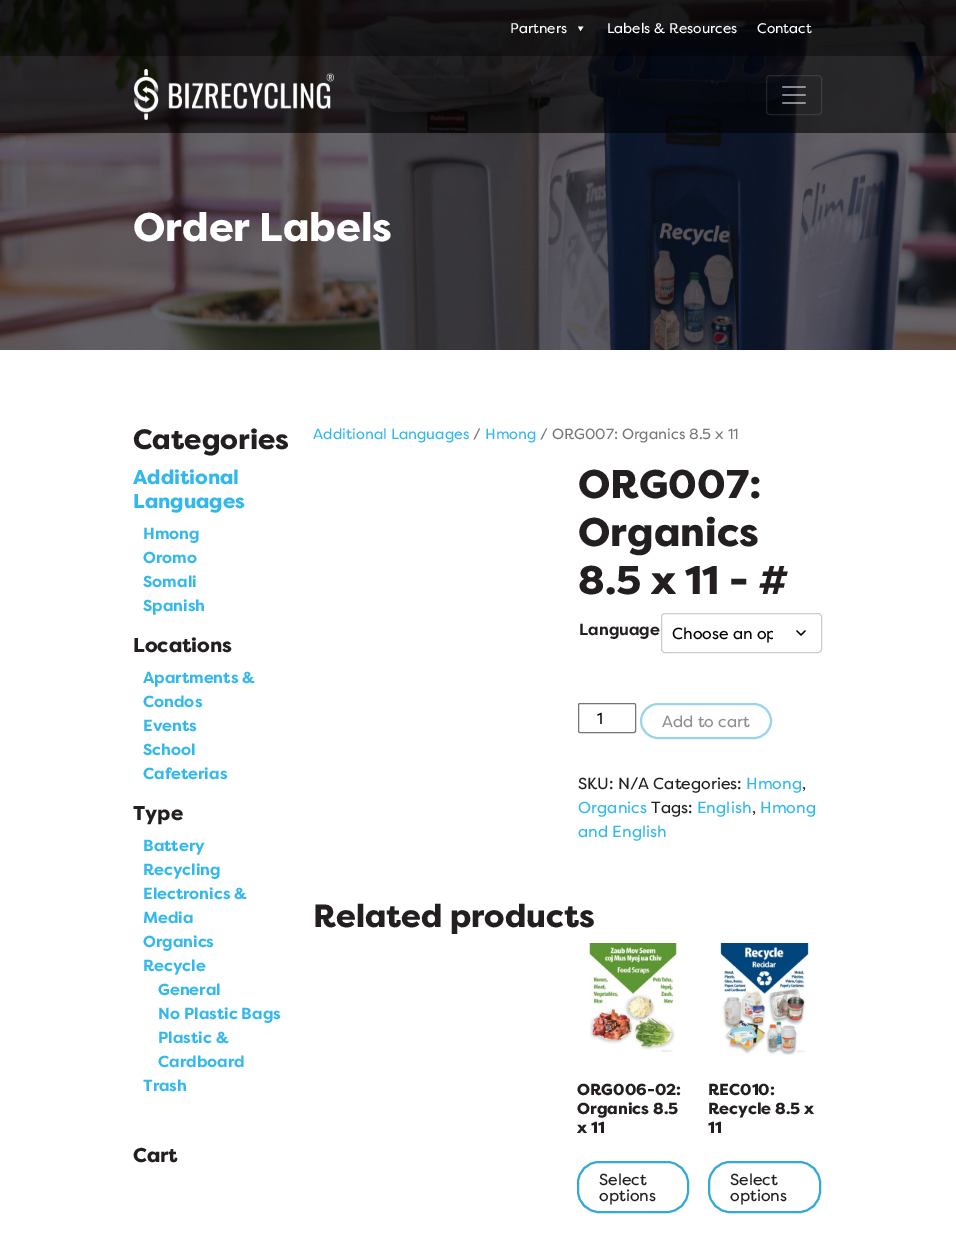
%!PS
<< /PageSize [956 1244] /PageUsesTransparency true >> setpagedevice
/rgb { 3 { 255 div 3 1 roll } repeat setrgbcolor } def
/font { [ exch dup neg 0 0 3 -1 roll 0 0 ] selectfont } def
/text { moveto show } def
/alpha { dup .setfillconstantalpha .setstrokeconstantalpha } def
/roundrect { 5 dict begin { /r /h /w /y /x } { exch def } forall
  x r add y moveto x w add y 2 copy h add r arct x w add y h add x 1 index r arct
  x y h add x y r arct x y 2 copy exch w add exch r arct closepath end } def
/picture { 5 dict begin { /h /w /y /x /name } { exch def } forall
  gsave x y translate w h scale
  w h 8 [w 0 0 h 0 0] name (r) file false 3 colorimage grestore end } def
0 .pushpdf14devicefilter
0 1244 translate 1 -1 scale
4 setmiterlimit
255 255 255 rgb
0 0 956 1244 rectfill
(img_03.rgb) 0 0 956 350 picture
0.75 alpha
0 0 0 rgb
0 0 956 56 rectfill
1 alpha
255 255 255 rgb
583.5 26.5 moveto -3 4.5 rlineto -2.5 -4.5 rlineto closepath fill
0.6 alpha
0 0 0 rgb
0 56 956 77 rectfill
1 alpha
(img_01.rgb) 134 69 200 51 picture
0.1 alpha
255 255 255 rgb
766.5 75.5 55 39 3.5 roundrect stroke
1 alpha
(img_02.rgb) 782 86 24 18 picture
0 0 0 rgb
1.3 setlinewidth
1 setlinecap
1 setlinejoin
797 631 moveto 4 4 rlineto 4 -4 rlineto stroke
204 204 204 rgb
1 setlinewidth
0 setlinecap
0 setlinejoin
661.5 613.5 160 39 3.5 roundrect stroke
118 118 118 rgb
578.5 703.5 57 29 1.5 roundrect stroke
154 212 236 rgb
2 setlinewidth
641 704 130 34 17 roundrect stroke
(img_04.rgb) 589 943 90 109 picture
52 169 217 rgb
578 1162 110 50 21 roundrect stroke
(img_05.rgb) 720 943 90 112 picture
709 1162 111 50 21 roundrect stroke
/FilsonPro-Regular 14 font
255 255 255 rgb
(Partners) 510 33 text
(Labels & Resources) 607 33 text
(Contact) 757 33 text
/FilsonPro-Black 40 font
(Order Labels) 133 241 text
/FilsonPro-Black 28 font
35 31 32 rgb
(Categories) 133 449 text
/FilsonPro-Black 20 font
51 184 235 rgb
(Additional) 133 484 text
(Languages) 133 508 text
/FilsonPro-Bold 16 font
(Hmong) 143 539 text
(Oromo) 143 563 text
(Somali) 143 587 text
(Spanish) 143 611 text
/FilsonPro-Black 20 font
35 31 32 rgb
(Locations) 133 652 text
/FilsonPro-Bold 16 font
51 184 235 rgb
(Apartments &) 143 683 text
(Condos) 143 707 text
(Events) 143 731 text
(School) 143 755 text
(Cafeterias) 143 779 text
/FilsonPro-Black 20 font
35 31 32 rgb
(Type) 133 820 text
/FilsonPro-Bold 16 font
51 184 235 rgb
(Battery) 143 851 text
(Recycling) 143 875 text
(Electronics &) 143 899 text
(Media) 143 923 text
(Organics) 143 947 text
(Recycle) 143 971 text
(General) 158 995 text
(No Plastic Bags) 158 1019 text
(Plastic &) 158 1043 text
(Cardboard) 158 1067 text
(Trash) 143 1091 text
/FilsonPro-Black 20 font
35 31 32 rgb
(Cart) 133 1162 text
/FilsonPro-Regular 14.75 font
51 184 235 rgb
(Additional Languages) 313 439 text
118 118 118 rgb
(/) 473 439 text
51 184 235 rgb
(Hmong) 485 439 text
118 118 118 rgb
(/ ORG007: Organics 8.5 x 11) 540 439 text
/FilsonPro-Black 40 font
35 31 32 rgb
(ORG007:) 578 498 text
(Organics) 578 546 text
(8.5 x 11 - #) 578 594 text
/FilsonPro-Bold 16 font
(Language) 579 635 text
gsave
672 617 101 32 rectclip
/FilsonPro-Regular 16 font
0 0 0 rgb
(Choose an op) 672 639 text
grestore
/FilsonPro-Regular 16 font
0 0 0 rgb
(1) 597 724 text
143 143 146 rgb
(Add to cart) 662 727 text
35 31 32 rgb
(SKU: N/A Categories:) 578 789 text
51 184 235 rgb
(Hmong) 746 789 text
35 31 32 rgb
(,) 802 789 text
51 184 235 rgb
(Organics) 578 813 text
35 31 32 rgb
(Tags:) 651 813 text
51 184 235 rgb
(English) 697 813 text
35 31 32 rgb
(,) 752 813 text
51 184 235 rgb
(Hmong) 760 813 text
(and English) 578 837 text
/FilsonPro-Black 32 font
35 31 32 rgb
(Related products) 313 927 text
/FilsonPro-Black 16 font
(ORG006-02:) 577 1095 text
(Organics 8.5) 577 1114 text
(x 11) 577 1133 text
/FilsonPro-Regular 16 font
(Select) 599 1185 text
(options) 599 1201 text
/FilsonPro-Black 16 font
(REC010:) 708 1095 text
(Recycle 8.5 x) 708 1114 text
(11) 708 1133 text
/FilsonPro-Regular 16 font
(Select) 730 1185 text
(options) 730 1201 text
.poppdf14devicefilter showpage
